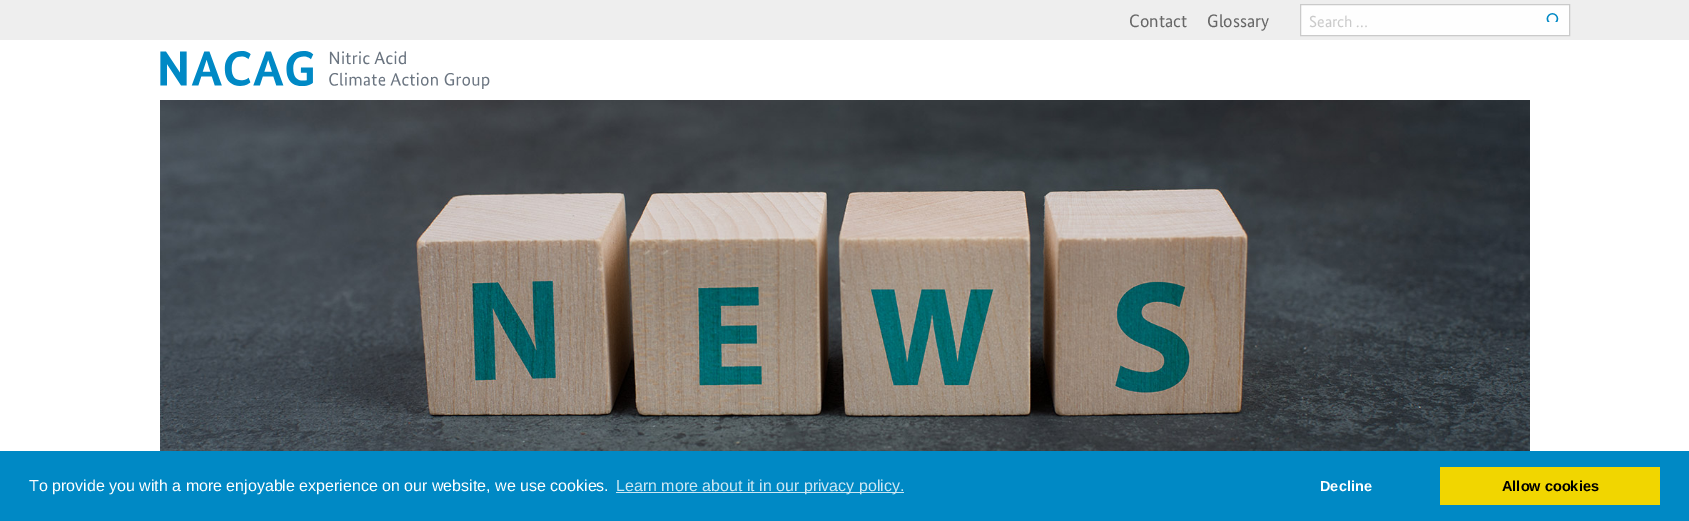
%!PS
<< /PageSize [1689 521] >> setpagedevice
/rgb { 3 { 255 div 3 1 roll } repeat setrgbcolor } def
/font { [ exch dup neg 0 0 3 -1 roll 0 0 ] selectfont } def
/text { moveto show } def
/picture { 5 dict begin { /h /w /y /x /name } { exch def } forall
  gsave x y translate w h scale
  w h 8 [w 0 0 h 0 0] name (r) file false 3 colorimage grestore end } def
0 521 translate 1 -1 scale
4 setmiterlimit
255 255 255 rgb
0 0 1689 521 rectfill
238 238 238 rgb
0 0 1689 40 rectfill
254 254 254 rgb
1300.5 4.5 moveto 269 0 rlineto 0 31 rlineto -269 0 rlineto closepath gsave fill grestore
202 202 202 rgb
stroke
(img_01.rgb) 1546 13 13 9 picture
(img_02.rgb) 160 51 330 38 picture
(img_03.rgb) 160 100 1370 351 picture
0 137 197 rgb
0 451 1689 70 rectfill
204 231 243 rgb
616 492 288 1 rectfill
241 214 0 rgb
1440 467 220 38 rectfill
/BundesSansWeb-Regular 18 font
102 102 102 rgb
(Contact) 1129 27 text
(Glossary) 1207 27 text
/BundesSansWeb-Regular 16 font
202 202 202 rgb
(Search …) 1309 27 text
/LiberationSans-Regular 16 font
255 255 255 rgb
(To provide you with a more enjoyable experience on our website, we use cookies.) 29 491 text
204 231 243 rgb
(Learn more about it in our privacy policy.) 616 491 text
/LiberationSans-Bold 14.5 font
255 255 255 rgb
(Decline) 1320 491 text
0 0 0 rgb
(Allow cookies) 1502 491 text
showpage
